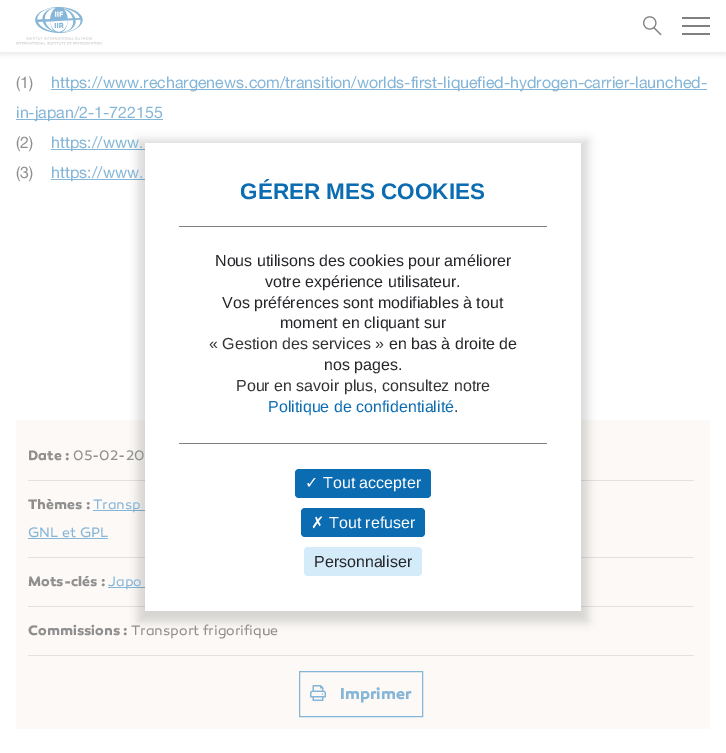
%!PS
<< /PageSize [726 753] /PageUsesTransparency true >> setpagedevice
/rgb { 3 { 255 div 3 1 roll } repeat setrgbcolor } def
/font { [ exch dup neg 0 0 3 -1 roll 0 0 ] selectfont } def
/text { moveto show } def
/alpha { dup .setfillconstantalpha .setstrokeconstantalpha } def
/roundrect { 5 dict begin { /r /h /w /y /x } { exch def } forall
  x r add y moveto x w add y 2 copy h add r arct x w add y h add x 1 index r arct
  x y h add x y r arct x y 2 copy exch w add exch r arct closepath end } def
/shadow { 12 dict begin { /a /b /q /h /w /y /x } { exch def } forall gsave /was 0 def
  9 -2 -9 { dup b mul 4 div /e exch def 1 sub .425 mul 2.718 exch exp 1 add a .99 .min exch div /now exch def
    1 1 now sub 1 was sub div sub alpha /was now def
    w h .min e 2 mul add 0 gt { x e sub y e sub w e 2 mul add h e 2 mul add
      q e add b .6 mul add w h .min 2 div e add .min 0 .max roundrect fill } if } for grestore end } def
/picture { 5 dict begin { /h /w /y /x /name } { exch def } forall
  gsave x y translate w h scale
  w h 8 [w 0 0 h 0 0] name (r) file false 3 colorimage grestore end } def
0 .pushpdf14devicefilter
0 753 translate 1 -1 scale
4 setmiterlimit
255 255 255 rgb
0 0 726 753 rectfill
128 128 128 rgb
0 2 726 52 0 3 0.2 shadow
255 255 255 rgb
0 0 726 52 rectfill
(img_01.rgb) 16 7 86 38 picture
(img_02.rgb) 643 16 19 20 picture
128 128 128 rgb
682 17 28 2 rectfill
682 25 28 2 rectfill
682 33 28 2 rectfill
133 182 216 rgb
51 89 656 1 rectfill
16 119 147 1 rectfill
51 149 94 1 rectfill
51 179 94 1 rectfill
252 249 246 rgb
16 420 694 309 rectfill
226 226 226 rgb
28 480 666 1 rectfill
28 557 666 1 rectfill
133 182 216 rgb
93 510 52 1 rectfill
28 538 80 1 rectfill
226 226 226 rgb
28 606 666 1 rectfill
133 182 216 rgb
108 587 43 1 rectfill
226 226 226 rgb
28 655 666 1 rectfill
133 182 216 rgb
299.5 671.5 123 45 rectstroke
(img_03.rgb) 310 685 16 16 picture
0 0 0 rgb
138 140 450 482 0 5 0.15 shadow
255 255 255 rgb
145 143 436 468 rectfill
128 128 128 rgb
179 226 368 1 rectfill
179 443 368 1 rectfill
11 108 177 rgb
295 469 136 29 4 roundrect fill
301 508 124 29 4 roundrect fill
212 235 250 rgb
304 547 118 29 4 roundrect fill
/HelveticaNeue-Regular 16 font
143 143 143 rgb
(\(1\)) 16 88 text
133 182 216 rgb
(https://www.rechargenews.com/transition/worlds-first-liquefied-hydrogen-carrier-launched-) 51 88 text
(in-japan/2-1-722155) 16 118 text
143 143 143 rgb
(\(2\)) 16 148 text
133 182 216 rgb
(https://www.) 51 148 text
143 143 143 rgb
(\(3\)) 16 178 text
133 182 216 rgb
(https://www.) 51 178 text
/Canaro-Bold 14 font
143 143 143 rgb
(Date :) 28 460 text
/Canaro-Regular 14 font
(05-02-20) 73 460 text
/Canaro-Bold 14 font
(Thèmes :) 28 509 text
/Canaro-Regular 14 font
133 182 216 rgb
(Transp) 93 509 text
(GNL et GPL) 28 537 text
/Canaro-Bold 14 font
143 143 143 rgb
(Mots-clés :) 28 586 text
/Canaro-Regular 14 font
133 182 216 rgb
(Japo) 108 586 text
/Canaro-Bold 14 font
143 143 143 rgb
(Commissions :) 28 635 text
/Canaro-Regular 14 font
(Transport frigorifique) 131 635 text
/Canaro-Bold 16 font
133 182 216 rgb
(Imprimer) 340 699 text
/LiberationSans-Bold 22.5 font
11 108 177 rgb
(GÉRER MES COOKIES) 240 199 text
/LiberationSans-Regular 16 font
38 38 42 rgb
(Nous utilisons des cookies pour améliorer) 215 266 text
(votre expérience utilisateur.) 265 287 text
(Vos préférences sont modifiables à tout) 222 308 text
(moment en cliquant sur) 280 328 text
51 51 51 rgb
(« Gestion des services ») 209 349 text
38 38 42 rgb
(en bas à droite de) 389 349 text
(nos pages.) 324 370 text
51 51 51 rgb
(Pour en savoir plus, consultez notre) 236 391 text
11 108 177 rgb
(Politique de confidentialité) 268 412 text
51 51 51 rgb
(.) 454 412 text
/DejaVuSans-Regular 16 font
255 255 255 rgb
(✓) 305 488 text
/LiberationSans-Regular 16 font
(Tout accepter) 323 488 text
/DejaVuSans-Regular 16 font
(✗) 311 528 text
/LiberationSans-Regular 16 font
(Tout refuser) 329 528 text
38 38 42 rgb
(Personnaliser) 314 567 text
.poppdf14devicefilter showpage
